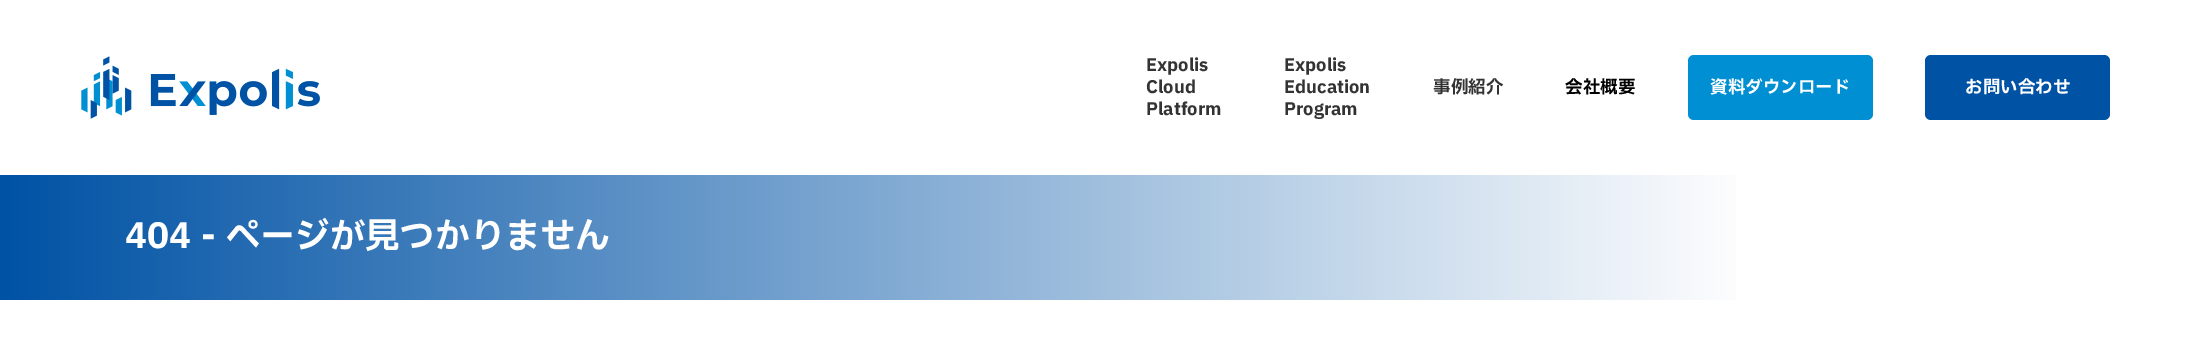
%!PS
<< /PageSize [2191 354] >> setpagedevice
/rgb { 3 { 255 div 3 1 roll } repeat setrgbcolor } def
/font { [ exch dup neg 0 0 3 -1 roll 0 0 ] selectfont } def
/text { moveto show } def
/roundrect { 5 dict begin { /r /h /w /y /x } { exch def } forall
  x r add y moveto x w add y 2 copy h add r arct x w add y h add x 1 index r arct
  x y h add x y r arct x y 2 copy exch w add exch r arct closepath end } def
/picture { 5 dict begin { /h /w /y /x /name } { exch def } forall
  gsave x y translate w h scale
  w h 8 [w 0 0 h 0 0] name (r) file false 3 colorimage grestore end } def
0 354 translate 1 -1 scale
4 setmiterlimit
255 255 255 rgb
0 0 2191 354 rectfill
(img_01.rgb) 81 56 239 63 picture
0 143 211 rgb
1688 55 185 65 6 roundrect fill
0 82 165 rgb
1925 55 185 65 6 roundrect fill
gsave 0 175 moveto 1736 0 rlineto 0 125 rlineto -1736 0 rlineto closepath clip newpath
<< /ShadingType 2 /ColorSpace /DeviceRGB /Coords [0 238 1753 237] /Extend [true true] /Function << /FunctionType 2 /Domain [0 1] /C0 [0 0.322 0.647] /C1 [1 1 1] /N 1 >> >> shfill grestore
/IBMPlexSansJP-Bold 17.5 font
51 51 51 rgb
(Expolis) 1146 71 text
(Cloud) 1146 93 text
(Platform) 1146 115 text
(Expolis) 1284 71 text
(Education) 1284 93 text
(Program) 1284 115 text
(事例紹介) 1433 93 text
0 0 0 rgb
(会社概要) 1565 93 text
255 255 255 rgb
(資料ダウンロード) 1710 93 text
(お問い合わせ) 1965 93 text
/IBMPlexSansJP-Bold 35 font
125 248 moveto 1 0 32 (404 - ページが見つかりません) widthshow
showpage
